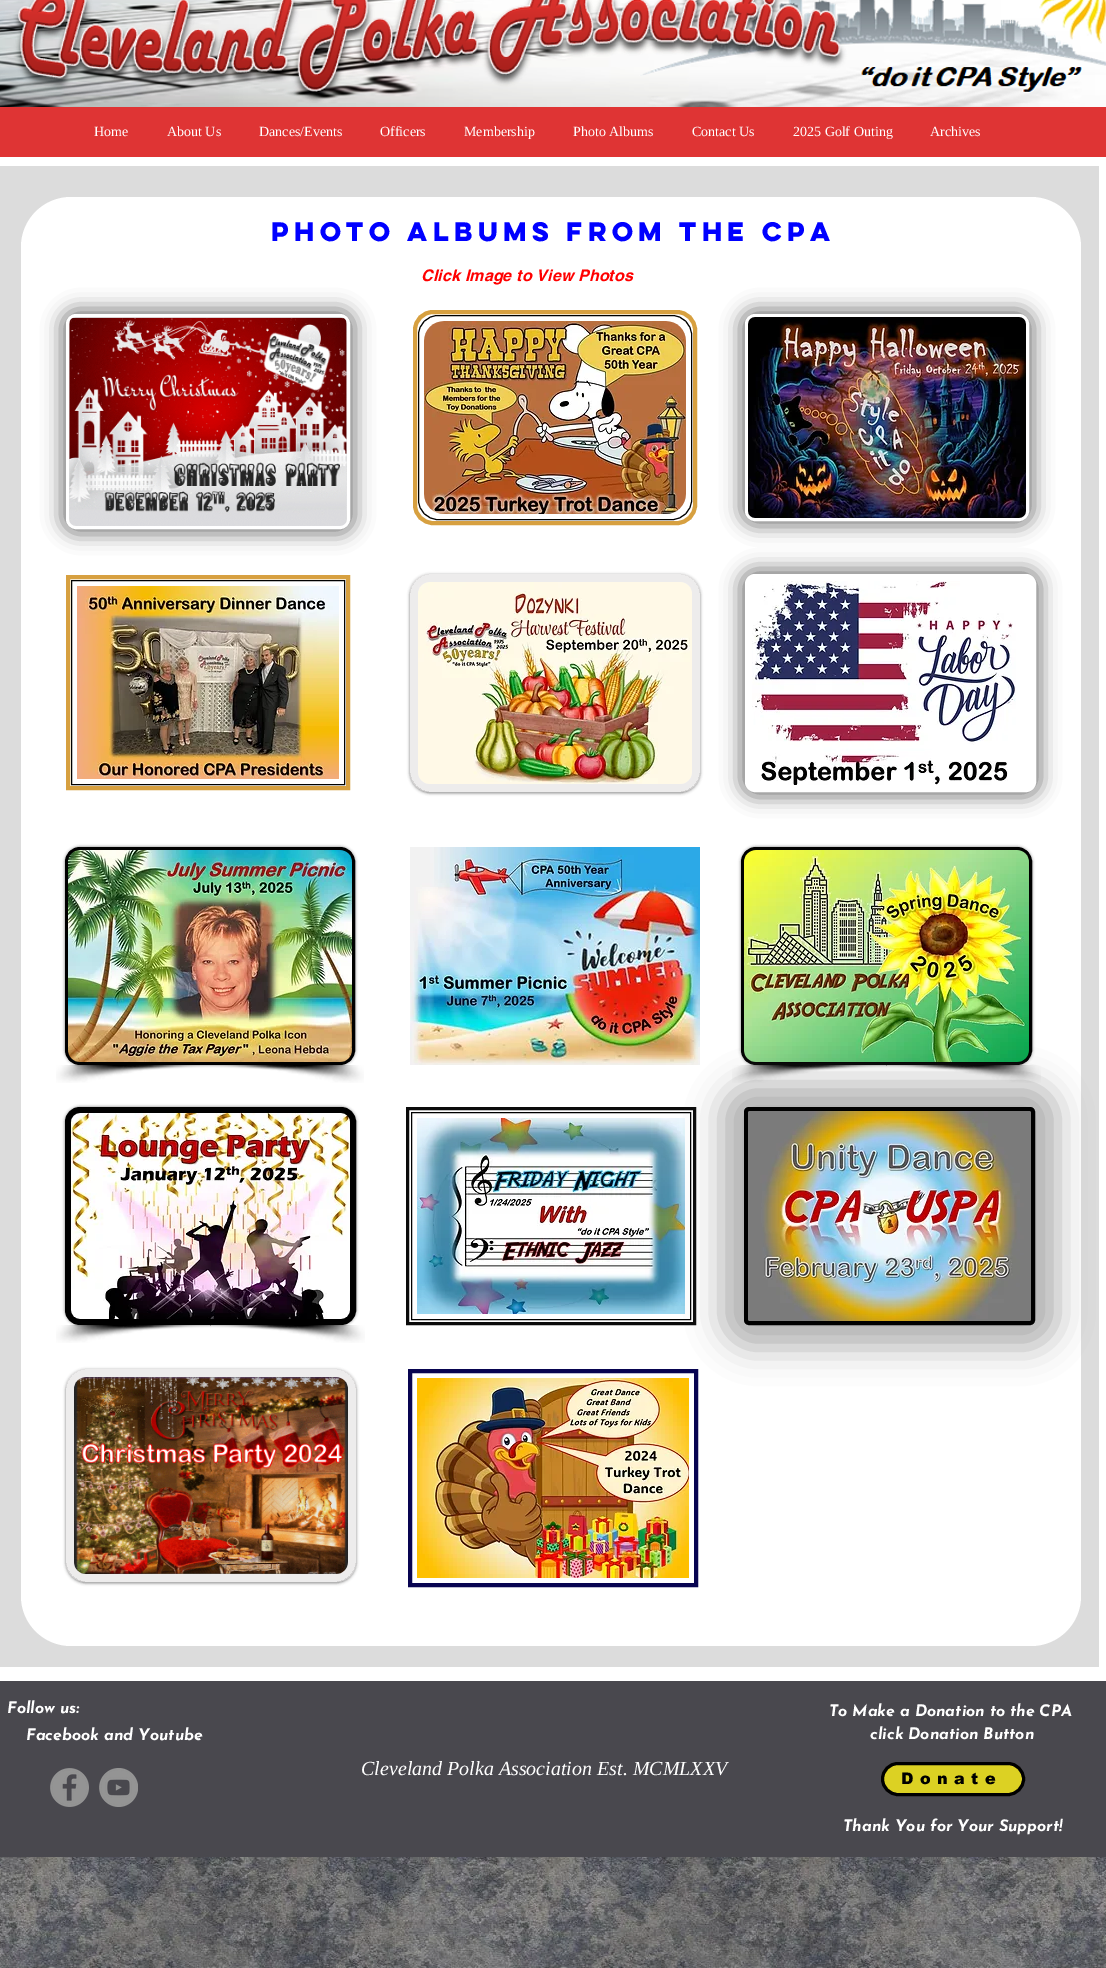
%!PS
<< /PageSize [1106 1968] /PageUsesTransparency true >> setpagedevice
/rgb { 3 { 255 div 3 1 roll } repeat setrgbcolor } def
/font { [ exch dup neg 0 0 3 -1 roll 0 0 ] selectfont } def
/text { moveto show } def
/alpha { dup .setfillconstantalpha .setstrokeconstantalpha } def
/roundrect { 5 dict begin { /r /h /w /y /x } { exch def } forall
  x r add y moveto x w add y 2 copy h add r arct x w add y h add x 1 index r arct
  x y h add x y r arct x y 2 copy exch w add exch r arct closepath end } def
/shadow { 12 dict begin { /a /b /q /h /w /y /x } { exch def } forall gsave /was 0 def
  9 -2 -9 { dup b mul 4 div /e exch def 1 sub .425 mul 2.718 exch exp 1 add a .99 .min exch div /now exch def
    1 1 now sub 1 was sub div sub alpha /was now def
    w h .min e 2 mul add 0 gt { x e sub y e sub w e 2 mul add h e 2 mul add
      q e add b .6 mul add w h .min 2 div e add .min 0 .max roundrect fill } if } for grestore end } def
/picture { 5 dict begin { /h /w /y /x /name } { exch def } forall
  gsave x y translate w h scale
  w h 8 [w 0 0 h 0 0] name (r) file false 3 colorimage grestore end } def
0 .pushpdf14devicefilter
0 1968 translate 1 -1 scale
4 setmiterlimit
255 255 255 rgb
0 0 1106 1968 rectfill
(img_01.rgb) 0 0 1106 107 picture
223 52 52 rgb
0 107 1106 50 rectfill
220 220 220 rgb
0 166 1099 1501 rectfill
255 255 255 rgb
21 197 1060 1449 50 roundrect fill
117 117 117 rgb
61 309 294 225 15 9.5 0.92 shadow
255 255 255 rgb
3 setlinewidth
67.5 315.5 281 212 8.5 roundrect stroke
(img_02.rgb) 69 317 278 209 picture
215 160 64 rgb
4 setlinewidth
415 312 280 211 18 roundrect stroke
(img_03.rgb) 424 321 262 193 picture
0 0 0 rgb
1 setlinewidth
418.5 315.5 273 204 19.5 roundrect stroke
117 117 117 rgb
740 309 294 217 15 9.5 0.92 shadow
255 255 255 rgb
3 setlinewidth
746.5 315.5 281 204 8.5 roundrect stroke
(img_04.rgb) 748 317 278 201 picture
215 160 64 rgb
4 setlinewidth
68 577 280 211 rectstroke
(img_05.rgb) 77 586 262 193 picture
0 0 0 rgb
1 setlinewidth
71.5 580.5 273 204 rectstroke
gsave
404 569 moveto 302 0 rlineto 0 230 rlineto -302 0 rlineto closepath 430 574 moveto 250 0 rlineto 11 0 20 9 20 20 rcurveto 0 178 rlineto 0 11 -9 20 -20 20 rcurveto -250 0 rlineto -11 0 -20 -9 -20 -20 rcurveto 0 -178 rlineto 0 -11 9 -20 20 -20 rcurveto closepath eoclip newpath
410 575 290 218 20 1.5 0.5 shadow
grestore
0.5 alpha
232 230 230 rgb
410 574 290 218 20 roundrect fill
8 setlinewidth
414 578 282 210 16 roundrect stroke
1 alpha
(img_06.rgb) 418 582 274 202 picture
117 117 117 rgb
740 569 301 228 15 9.5 0.92 shadow
255 255 255 rgb
748.5 577.5 284 211 6.5 roundrect gsave fill grestore
7 setlinewidth
stroke
(img_07.rgb) 752 581 264 204 picture
0 0 0 rgb
65 847 290 218 15 1.5 0.5 shadow
3 setlinewidth
66.5 848.5 287 215 13.5 roundrect stroke
(img_08.rgb) 68 850 284 212 picture
(img_09.rgb) 56 1065 154 18 picture
(img_10.rgb) 210 1065 154 18 picture
(img_11.rgb) 410 847 290 218 picture
741 847 291 218 15 1.5 0.5 shadow
742.5 848.5 288 215 13.5 roundrect stroke
(img_12.rgb) 744 850 285 212 picture
(img_09.rgb) 732 1065 154 18 picture
(img_10.rgb) 887 1065 154 18 picture
65 1107 291 218 15 1.5 0.5 shadow
68 1110 285 212 12 roundrect gsave fill grestore
6 setlinewidth
stroke
(img_13.rgb) 71 1113 279 206 picture
(img_09.rgb) 56 1325 154 18 picture
(img_10.rgb) 211 1325 154 18 picture
10 10 10 rgb
3 setlinewidth
407.5 1108.5 287 215 rectstroke
(img_14.rgb) 417 1118 268 196 picture
0 0 0 rgb
1 setlinewidth
411.5 1112.5 279 207 rectstroke
117 117 117 rgb
721 1084 337 264 28 17 0.57 shadow
0 0 0 rgb
746 1109 287 214 3 roundrect gsave fill grestore
4 setlinewidth
stroke
(img_15.rgb) 748 1111 283 210 picture
gsave
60 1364 moveto 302 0 rlineto 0 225 rlineto -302 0 rlineto closepath 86 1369 moveto 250 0 rlineto 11 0 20 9 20 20 rcurveto 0 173 rlineto 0 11 -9 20 -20 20 rcurveto -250 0 rlineto -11 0 -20 -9 -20 -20 rcurveto 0 -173 rlineto 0 -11 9 -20 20 -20 rcurveto closepath eoclip newpath
66 1370 290 213 20 1.5 0.5 shadow
grestore
0.5 alpha
232 230 230 rgb
66 1369 290 213 20 roundrect fill
8 setlinewidth
70 1373 282 205 16 roundrect stroke
1 alpha
(img_16.rgb) 74 1377 274 197 picture
8 4 81 rgb
4 setlinewidth
410 1371 286 214 rectstroke
(img_17.rgb) 417 1378 272 200 picture
73 72 78 rgb
0 1681 1106 176 rectfill
(img_18.rgb) 50 1768 39 39 picture
(img_19.rgb) 99 1768 39 39 picture
220 209 35 rgb
882.5 1763.5 141 31 15.5 roundrect gsave fill grestore
0 0 0 rgb
3 setlinewidth
stroke
(img_20.rgb) 0 1857 1106 111 picture
/LiberationSerif-Regular 14 font
255 255 255 rgb
(Home) 94 136 text
(About Us) 167 136 text
(Dances/Events) 259 136 text
(Officers) 380 136 text
(Membership) 464 136 text
(Photo Albums) 573 136 text
(Contact Us) 692 136 text
(2025 Golf Outing) 793 136 text
(Archives) 930 136 text
/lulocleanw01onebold-Bold 24 font
0 0 255 rgb
(Photo Albums from the CPA) 271 241 text
/helvetica-BoldItalic 16 font
255 0 0 rgb
421 281 moveto 0.15 0 (Click Image to View Photos) ashow
/JosefinSans-ThinItalic 16 font
255 255 255 rgb
(Follow us:) 7 1713 text
(Facebook and Youtube) 26 1740 text
(To Make a Donation to the CPA) 829 1716 text
(click Donation Button) 870 1739 text
/LiberationSerif-Italic 20 font
(Cleveland Polka Association Est. MCMLXXV) 361 1775 text
/arial-Black 16 font
0 0 0 rgb
901 1784 moveto 6.5 0 (Donate) ashow
/JosefinSans-ThinItalic 16 font
255 255 255 rgb
(Thank You for Your Support!) 843 1831 text
.poppdf14devicefilter showpage
